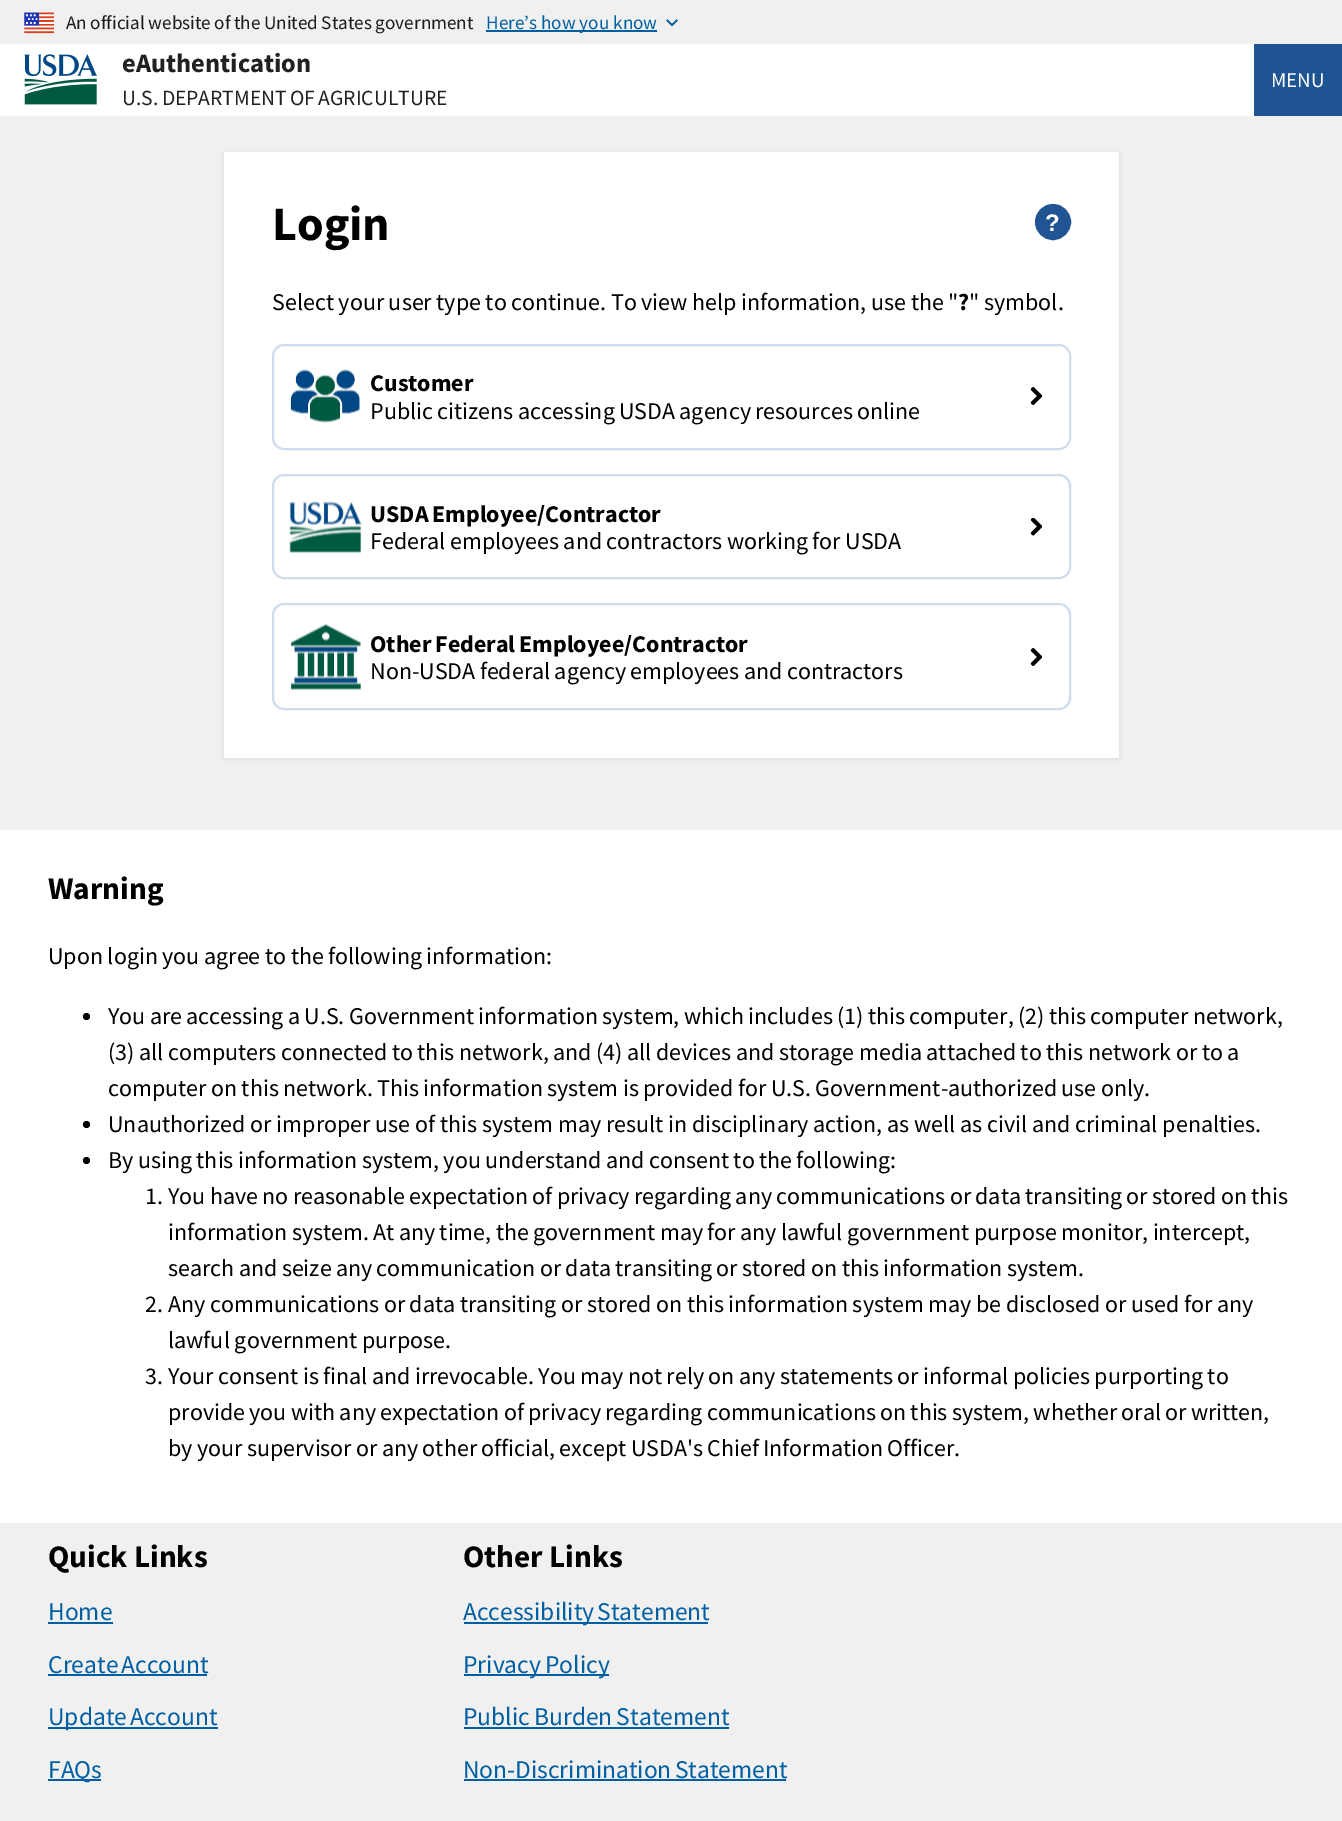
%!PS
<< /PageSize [1342 1821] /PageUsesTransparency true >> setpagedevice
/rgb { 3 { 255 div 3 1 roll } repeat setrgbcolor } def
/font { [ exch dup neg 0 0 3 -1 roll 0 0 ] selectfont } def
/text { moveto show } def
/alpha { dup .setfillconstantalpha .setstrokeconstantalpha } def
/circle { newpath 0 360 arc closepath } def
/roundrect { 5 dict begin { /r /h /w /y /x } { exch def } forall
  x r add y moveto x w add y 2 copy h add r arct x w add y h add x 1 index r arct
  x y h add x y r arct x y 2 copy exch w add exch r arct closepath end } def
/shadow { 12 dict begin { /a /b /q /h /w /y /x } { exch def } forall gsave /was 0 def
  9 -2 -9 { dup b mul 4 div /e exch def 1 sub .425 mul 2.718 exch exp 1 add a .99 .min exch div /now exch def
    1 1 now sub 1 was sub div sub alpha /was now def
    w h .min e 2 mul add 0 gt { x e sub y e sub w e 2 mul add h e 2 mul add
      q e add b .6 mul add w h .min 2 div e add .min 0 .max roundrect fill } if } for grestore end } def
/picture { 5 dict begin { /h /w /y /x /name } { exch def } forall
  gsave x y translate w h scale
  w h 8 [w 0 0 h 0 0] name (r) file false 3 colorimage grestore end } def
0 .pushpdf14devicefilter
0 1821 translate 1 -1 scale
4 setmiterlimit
255 255 255 rgb
0 0 1342 1821 rectfill
240 240 240 rgb
0 0 1342 44 rectfill
(img_01.rgb) 24 12 30 22 picture
0 94 162 rgb
486 30 171 2 rectfill
(img_02.rgb) 666 19 12 8 picture
(img_03.rgb) 24 54 74 51 picture
31 84 147 rgb
1254 44 88 72 rectfill
241 241 241 rgb
0 116 1342 714 rectfill
0 0 0 rgb
224 153 895 606 0 3 0.1 shadow
255 255 255 rgb
224 152 895 606 rectfill
32 84 147 rgb
1053 222 16.5 circle gsave fill grestore
3 setlinewidth
stroke
(img_04.rgb) 1030 387 13 18 picture
206 220 237 rgb
2 setlinewidth
273 345 797 104 11 roundrect stroke
(img_05.rgb) 290 369 70 54 picture
(img_06.rgb) 1030 518 13 18 picture
273 475 797 103 11 roundrect stroke
(img_07.rgb) 289 501 73 52 picture
(img_04.rgb) 1030 648 13 18 picture
273 604 797 105 11 roundrect stroke
(img_08.rgb) 291 623 70 68 picture
0 0 0 rgb
86.5 1016.5 3.5 circle fill
86.5 1124.5 3.5 circle fill
86.5 1160.5 3.5 circle fill
240 240 240 rgb
0 1523 1342 298 rectfill
0 94 162 rgb
48 1622 65 2 rectfill
48 1674 159 2 rectfill
48 1727 170 2 rectfill
48 1779 53 2 rectfill
464 1622 244 2 rectfill
464 1674 145 2 rectfill
464 1727 265 2 rectfill
464 1779 322 2 rectfill
/SourceSansPro-Regular 19.2 font
27 27 27 rgb
66 29 moveto -0.4 0 32 (An official website of the United States government) widthshow
0 94 162 rgb
(Here’s how you know) 486 29 text
/SourceSansPro-Bold 26.5 font
33 33 33 rgb
(eAuthentication) 122 72 text
/SourceSansPro-Regular 21.6 font
122 105 moveto -1 0 32 (U.S. DEPARTMENT OF AGRICULTURE) widthshow
/SourceSansPro-Regular 21 font
255 255 255 rgb
(MENU) 1271 87 text
/SourceSansPro-Bold 48 font
0 0 0 rgb
(Login) 272 240 text
/LiberationSans-Bold 24 font
255 255 255 rgb
(?) 1045 231 text
/SourceSansPro-Regular 24 font
0 0 0 rgb
272 310 moveto -0.25 0 32 (Select your user type to continue. To view help information, use the ") widthshow
/SourceSansPro-Bold 24 font
(?) 958 310 text
/SourceSansPro-Regular 24 font
(" symbol.) 969 310 text
/SourceSansPro-Bold 24 font
(Customer) 370 391 text
/SourceSansPro-Regular 24 font
370 419 moveto -0.5 0 32 (Public citizens accessing USDA agency resources online) widthshow
/SourceSansPro-Bold 24 font
370 522 moveto -1 0 32 (USDA Employee/Contractor) widthshow
/SourceSansPro-Regular 24 font
370 549 moveto -0.5 0 32 (Federal employees and contractors working for USDA) widthshow
/SourceSansPro-Bold 24 font
370 652 moveto -1 0 32 (Other Federal Employee/Contractor) widthshow
/SourceSansPro-Regular 24 font
370 679 moveto -0.5 0 32 (Non-USDA federal agency employees and contractors) widthshow
/SourceSansPro-Bold 31.25 font
(Warning) 48 899 text
/SourceSansPro-Regular 24 font
48 964 moveto -0.25 0 32 (Upon login you agree to the following information:) widthshow
108 1024 moveto -0.5 0 32 (You are accessing a U.S. Government information system, which includes \(1\) this computer, \(2\) this computer network,) widthshow
108 1060 moveto -0.3 0 32 (\(3\) all computers connected to this network, and \(4\) all devices and storage media attached to this network or to a) widthshow
108 1096 moveto -0.4 0 32 (computer on this network. This information system is provided for U.S. Government-authorized use only.) widthshow
(Unauthorized or improper use of this system may result in disciplinary action, as well as civil and criminal penalties.) 108 1132 text
108 1168 moveto -0.4 0 32 (By using this information system, you understand and consent to the following:) widthshow
(1.) 145 1204 text
168 1204 moveto -0.5 0 32 (You have no reasonable expectation of privacy regarding any communications or data transiting or stored on this) widthshow
168 1240 moveto -0.5 0 32 (information system. At any time, the government may for any lawful government purpose monitor, intercept,) widthshow
168 1276 moveto -0.5 0 32 (search and seize any communication or data transiting or stored on this information system.) widthshow
(2.) 145 1312 text
168 1312 moveto -0.25 0 32 (Any communications or data transiting or stored on this information system may be disclosed or used for any) widthshow
(lawful government purpose.) 168 1348 text
(3.) 145 1384 text
168 1384 moveto -0.4 0 32 (Your consent is final and irrevocable. You may not rely on any statements or informal policies purporting to) widthshow
168 1420 moveto -0.5 0 32 (provide you with any expectation of privacy regarding communications on this system, whether oral or written,) widthshow
168 1456 moveto -0.5 0 32 (by your supervisor or any other official, except USDA's Chief Information Officer.) widthshow
/SourceSansPro-Bold 31.25 font
(Quick Links) 48 1567 text
/SourceSansPro-Regular 25.5 font
0 94 162 rgb
(Home) 48 1620 text
48 1673 moveto -2 0 32 (Create Account) widthshow
48 1725 moveto -2 0 32 (Update Account) widthshow
(FAQs) 48 1778 text
/SourceSansPro-Bold 31.25 font
0 0 0 rgb
(Other Links) 463 1567 text
/SourceSansPro-Regular 25.5 font
0 94 162 rgb
463 1620 moveto -2 0 32 (Accessibility Statement) widthshow
463 1673 moveto -1 0 32 (Privacy Policy) widthshow
463 1725 moveto -1 0 32 (Public Burden Statement) widthshow
463 1778 moveto -2 0 32 (Non-Discrimination Statement) widthshow
.poppdf14devicefilter showpage
